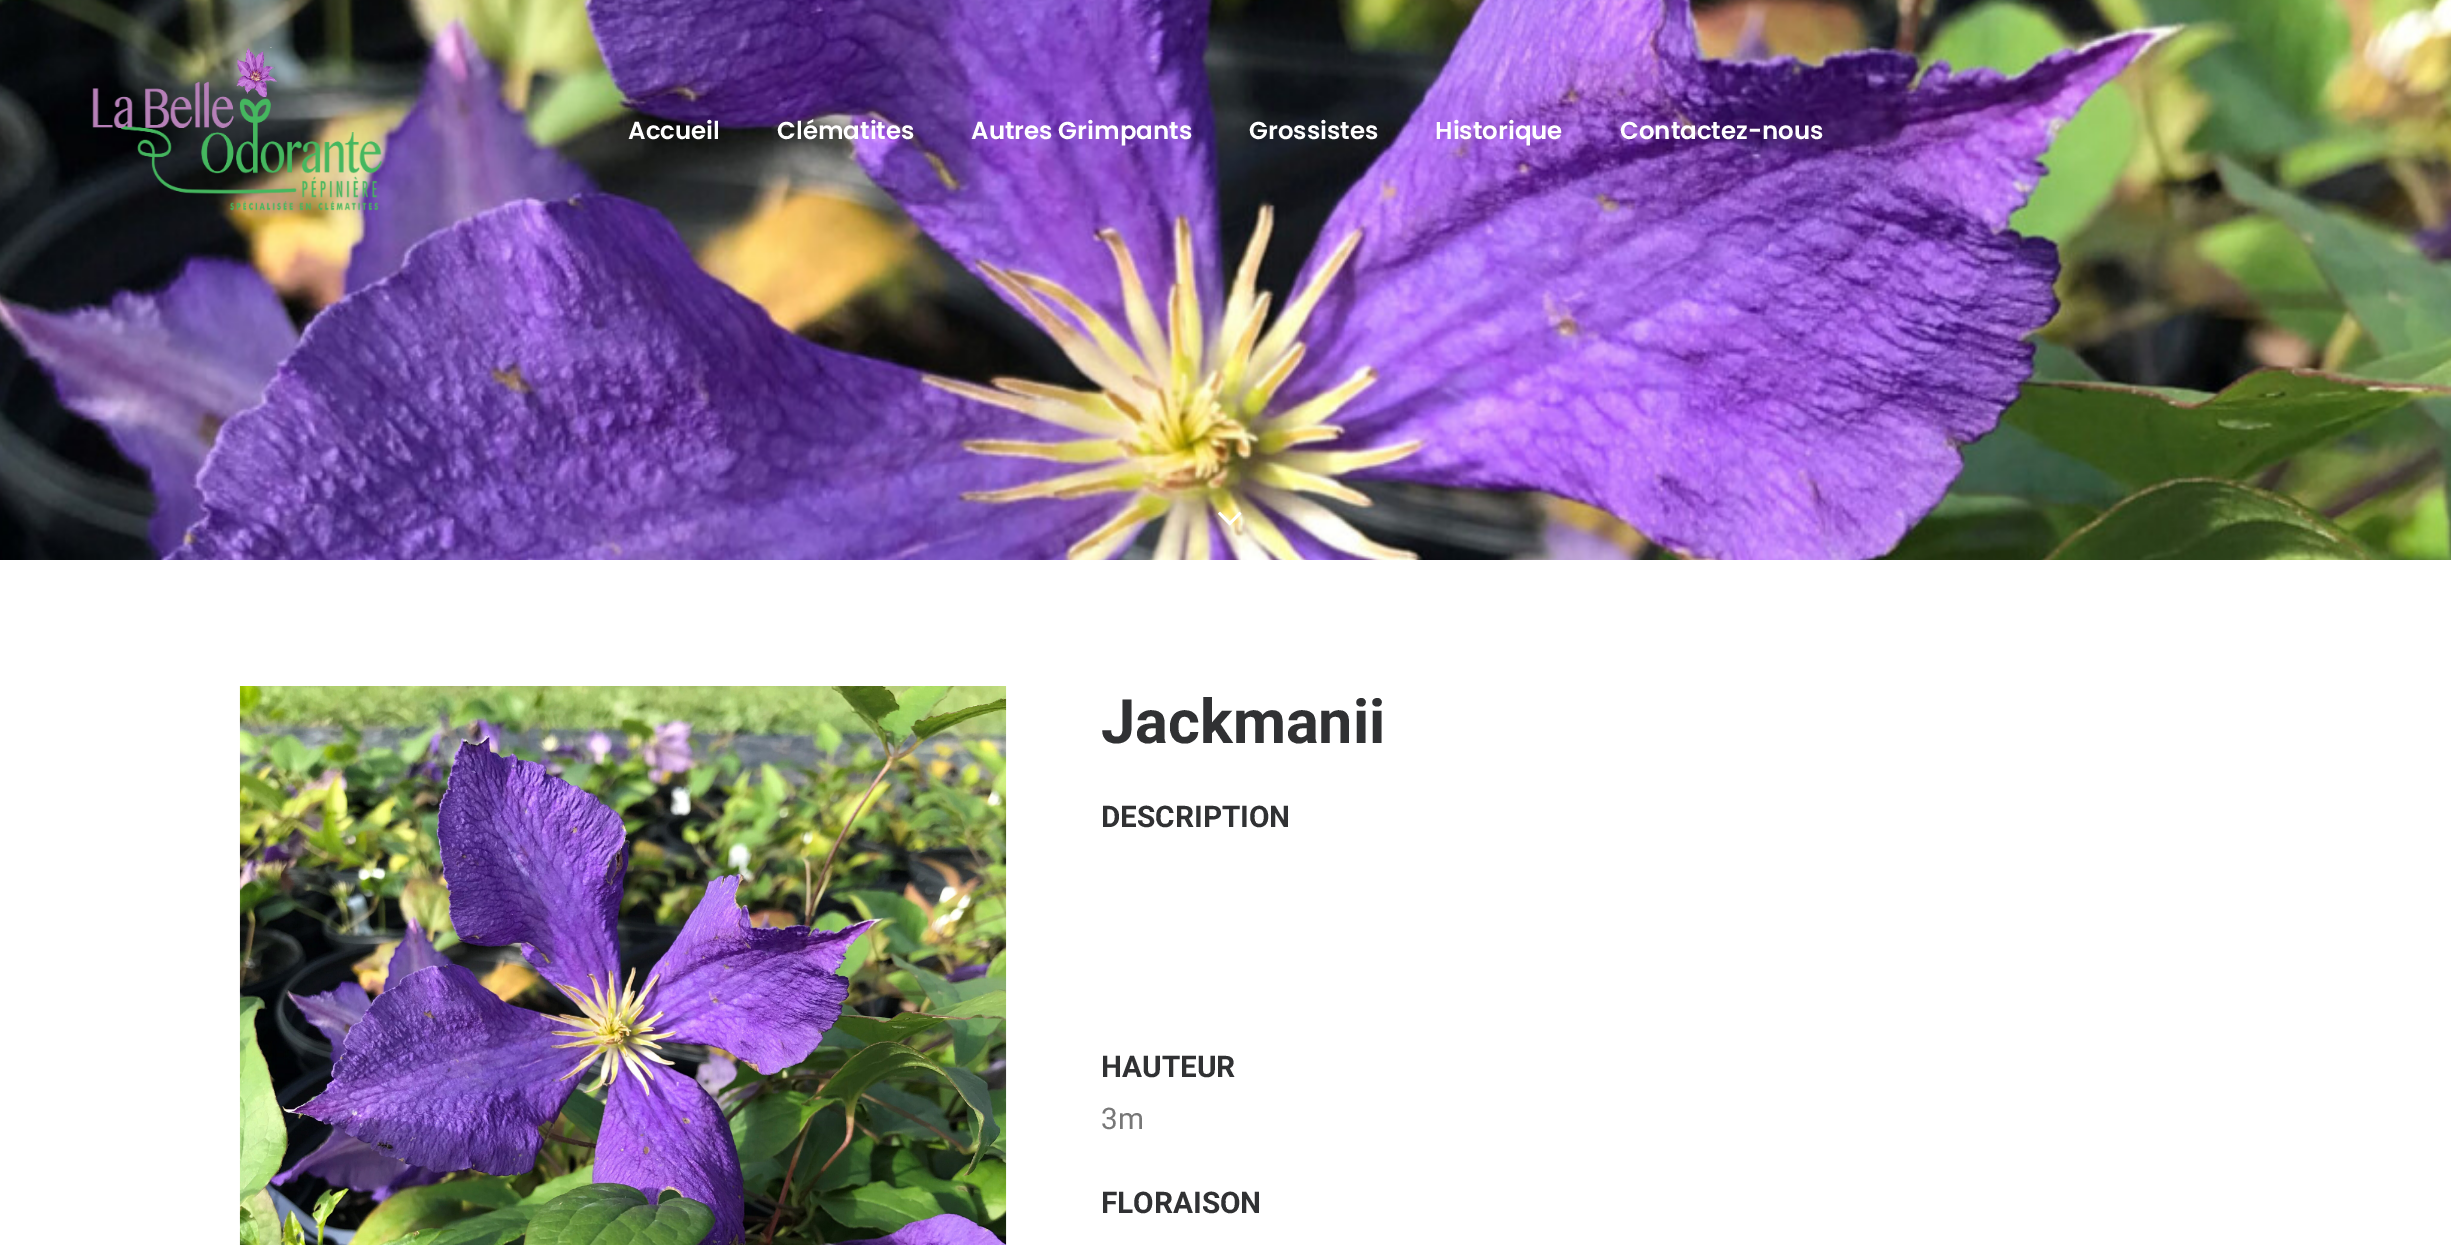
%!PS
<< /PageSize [2451 1245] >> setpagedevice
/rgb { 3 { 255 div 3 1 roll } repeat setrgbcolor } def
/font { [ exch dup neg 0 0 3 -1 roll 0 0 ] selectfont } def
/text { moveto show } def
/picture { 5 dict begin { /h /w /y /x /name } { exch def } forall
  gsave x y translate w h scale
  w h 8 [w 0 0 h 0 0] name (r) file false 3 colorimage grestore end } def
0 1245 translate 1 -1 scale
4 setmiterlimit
255 255 255 rgb
0 0 2451 1245 rectfill
(img_02.rgb) 0 0 2451 560 picture
(img_01.rgb) 92 47 290 164 picture
(img_03.rgb) 1218 511 24 15 picture
(img_04.rgb) 239 686 768 559 picture
/Poppins-SemiBold 24.5 font
(Accueil) 628 139 text
(Clématites) 777 139 text
(Autres Grimpants) 971 139 text
(Grossistes) 1249 139 text
(Historique) 1435 139 text
(Contactez-nous) 1620 139 text
/Roboto-Bold 61.25 font
48 49 51 rgb
(Jackmanii) 1101 743 text
/Roboto-Bold 29.75 font
(DESCRIPTION) 1101 827 text
(HAUTEUR) 1101 1077 text
/Roboto-Regular 29.75 font
119 119 119 rgb
(3m) 1101 1129 text
/Roboto-Bold 29.75 font
48 49 51 rgb
(FLORAISON) 1101 1213 text
showpage
